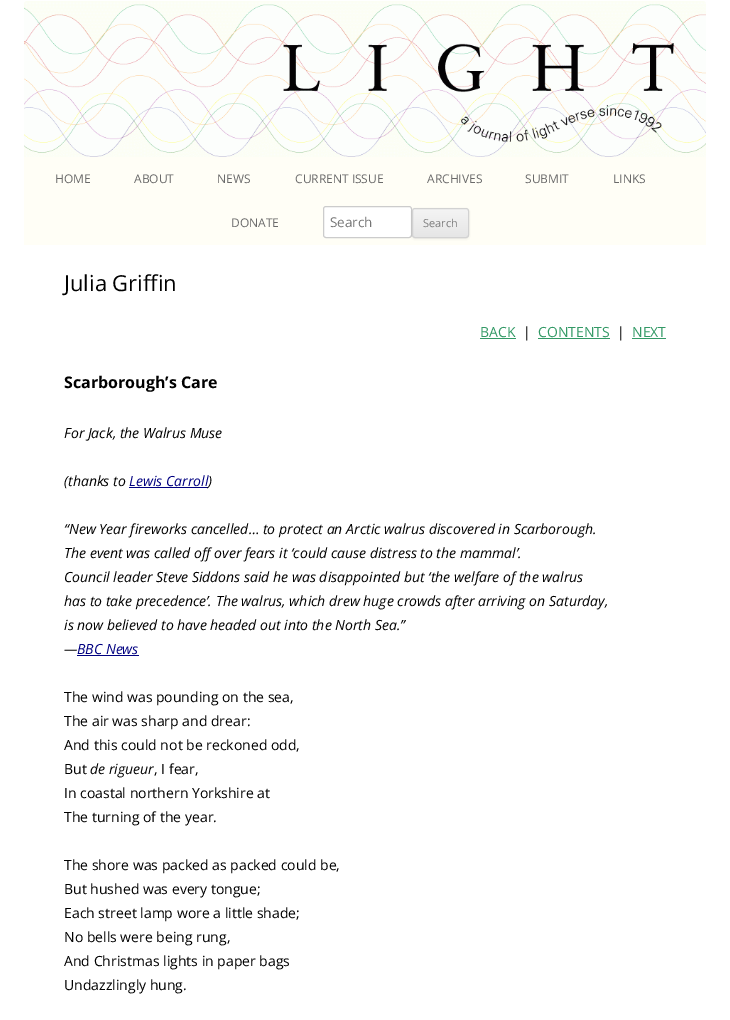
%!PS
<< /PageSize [730 1020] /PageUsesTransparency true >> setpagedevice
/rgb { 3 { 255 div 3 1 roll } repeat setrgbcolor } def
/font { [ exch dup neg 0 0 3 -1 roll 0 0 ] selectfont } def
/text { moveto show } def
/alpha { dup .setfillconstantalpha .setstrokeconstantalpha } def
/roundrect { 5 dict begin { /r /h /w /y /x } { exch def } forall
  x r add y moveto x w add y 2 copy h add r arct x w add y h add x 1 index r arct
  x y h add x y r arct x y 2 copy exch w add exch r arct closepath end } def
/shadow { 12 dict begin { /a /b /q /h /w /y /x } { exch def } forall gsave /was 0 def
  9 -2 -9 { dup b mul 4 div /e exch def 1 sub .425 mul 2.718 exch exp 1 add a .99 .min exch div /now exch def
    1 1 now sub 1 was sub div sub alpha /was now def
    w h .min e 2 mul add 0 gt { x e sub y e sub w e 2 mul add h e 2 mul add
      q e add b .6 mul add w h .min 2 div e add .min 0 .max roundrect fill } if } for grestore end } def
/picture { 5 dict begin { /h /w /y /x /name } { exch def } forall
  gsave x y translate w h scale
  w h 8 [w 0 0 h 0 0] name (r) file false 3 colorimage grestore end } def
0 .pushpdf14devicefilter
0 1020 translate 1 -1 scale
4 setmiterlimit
255 255 255 rgb
0 0 730 1020 rectfill
(img_01.rgb) 24 1 682 156 picture
255 254 246 rgb
24 157 682 88 rectfill
255 255 255 rgb
323.5 206.5 88 31 2.5 roundrect gsave fill grestore
204 204 204 rgb
stroke
64 64 64 rgb
412 209 57 30 3 1 0.1 shadow
gsave
412 208 57 30 3 roundrect clip newpath
gsave 412 209 moveto 57 0 rlineto 0 28 rlineto -57 0 rlineto closepath clip newpath
<< /ShadingType 2 /ColorSpace /DeviceRGB /Coords [441 209 441 237] /Extend [true true] /Function << /FunctionType 2 /Domain [0 1] /C0 [0.957 0.957 0.957] /C1 [0.902 0.902 0.902] /N 1 >> >> shfill grestore
grestore
210 210 210 rgb
412.5 208.5 56 29 2.5 roundrect stroke
51 153 102 rgb
480 338 36 1 rectfill
538 338 72 1 rectfill
632 338 34 1 rectfill
0 0 128 rgb
129 487 79 1 rectfill
77 655 62 1 rectfill
/OpenSans-Regular 12 font
106 106 106 rgb
(HOME) 55 183 text
(ABOUT) 134 183 text
(NEWS) 217 183 text
(CURRENT ISSUE) 295 183 text
(ARCHIVES) 427 183 text
(SUBMIT) 525 183 text
(LINKS) 613 183 text
(DONATE) 231 227 text
/OpenSans-Regular 13.5 font
117 117 117 rgb
(Search) 330 227 text
/OpenSans-Regular 11 font
124 124 124 rgb
(Search) 423 227 text
/OpenSans-Regular 22 font
0 0 0 rgb
(Julia Griffin) 64 291 text
/OpenSans-Regular 14 font
51 153 102 rgb
(BACK) 480 337 text
0 0 0 rgb
(|) 523 337 text
51 153 102 rgb
(CONTENTS) 538 337 text
0 0 0 rgb
(|) 617 337 text
51 153 102 rgb
(NEXT) 632 337 text
/OpenSans-Bold 16 font
0 0 0 rgb
(Scarborough’s Care) 64 388 text
/OpenSans-Italic 14 font
(For Jack, the Walrus Muse) 64 438 text
(\(thanks to) 64 486 text
0 0 128 rgb
(Lewis Carroll) 129 486 text
0 0 0 rgb
(\)) 208 486 text
(“New Year fireworks cancelled… to protect an Arctic walrus discovered in Scarborough.) 64 534 text
(The event was called off over fears it ‘could cause distress to the mammal’.) 64 558 text
(Council leader Steve Siddons said he was disappointed but ‘the welfare of the walrus) 64 582 text
(has to take precedence’. The walrus, which drew huge crowds after arriving on Saturday,) 64 606 text
(is now believed to have headed out into the North Sea.”) 64 630 text
(—) 64 654 text
0 0 128 rgb
(BBC News) 77 654 text
/OpenSans-Regular 14 font
0 0 0 rgb
(The wind was pounding on the sea,) 64 702 text
(The air was sharp and drear:) 64 726 text
(And this could not be reckoned odd,) 64 750 text
(But) 64 774 text
/OpenSans-Italic 14 font
(de rigueur) 90 774 text
/OpenSans-Regular 14 font
(, I fear,) 154 774 text
(In coastal northern Yorkshire at) 64 798 text
(The turning of the year.) 64 822 text
(The shore was packed as packed could be,) 64 870 text
(But hushed was every tongue;) 64 894 text
(Each street lamp wore a little shade;) 64 918 text
(No bells were being rung,) 64 942 text
(And Christmas lights in paper bags) 64 966 text
(Undazzlingly hung.) 64 990 text
.poppdf14devicefilter showpage
